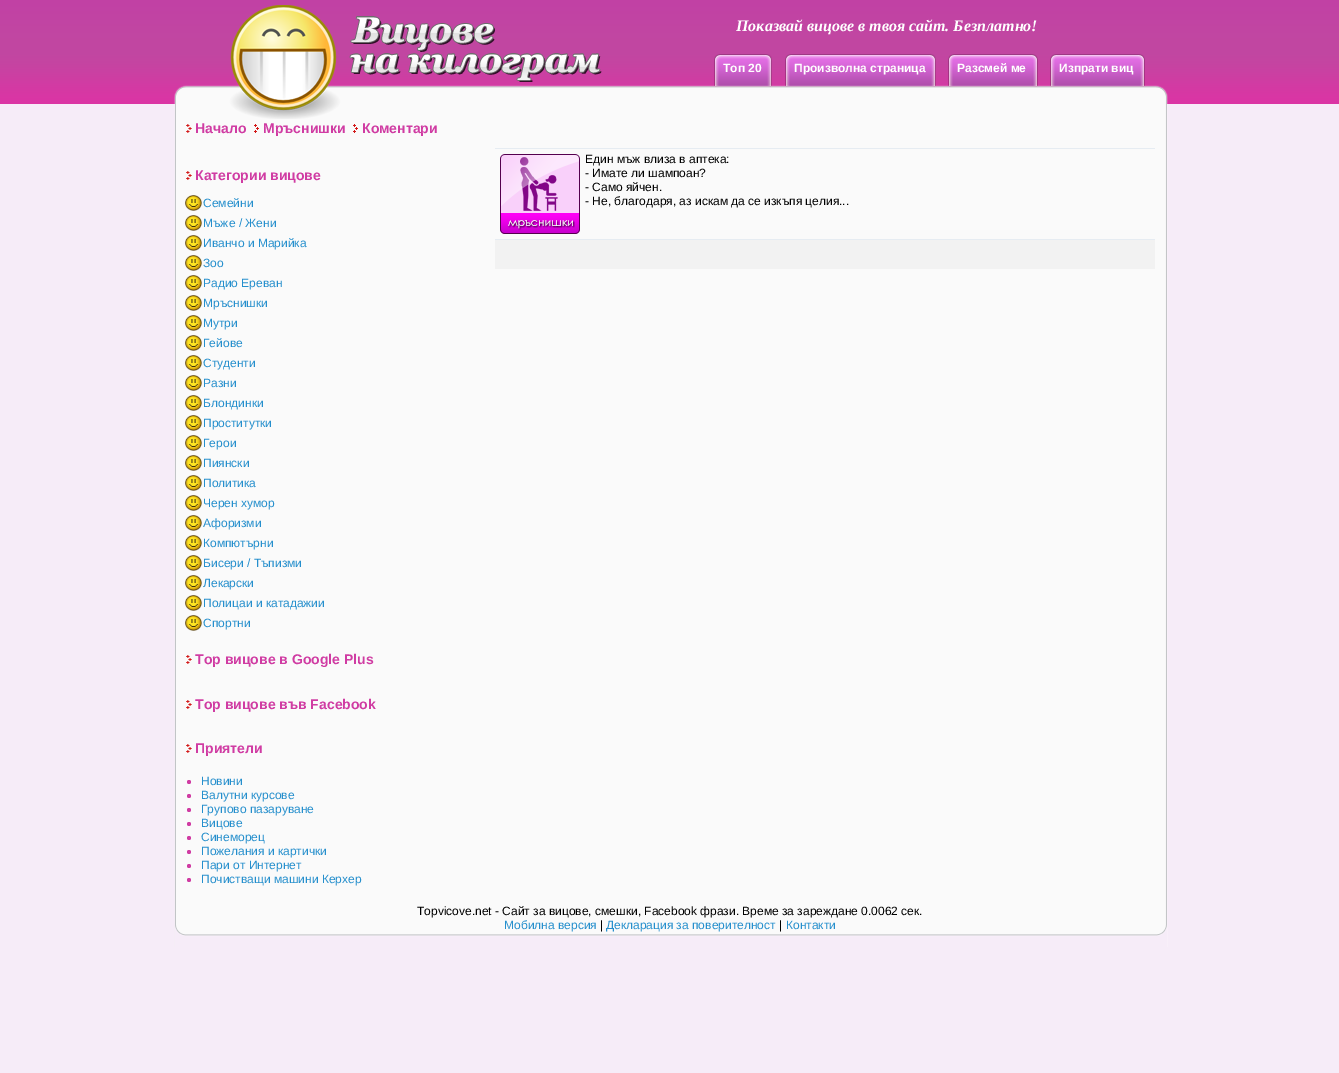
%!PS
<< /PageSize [1339 1073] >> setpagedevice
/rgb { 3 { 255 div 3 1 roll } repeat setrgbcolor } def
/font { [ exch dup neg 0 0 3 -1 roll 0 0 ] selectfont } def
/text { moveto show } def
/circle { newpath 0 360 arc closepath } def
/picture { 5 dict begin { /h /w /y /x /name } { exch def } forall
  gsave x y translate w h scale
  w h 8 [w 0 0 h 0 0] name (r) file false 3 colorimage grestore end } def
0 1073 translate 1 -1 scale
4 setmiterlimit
246 236 248 rgb
0 0 1339 1073 rectfill
(img_01.rgb) 0 0 1339 104 picture
(img_02.rgb) 170 119 1000 828 picture
(img_03.rgb) 170 0 1000 119 picture
(img_04.rgb) 714 54 9 32 picture
(img_05.rgb) 723 54 49 32 picture
(img_04.rgb) 785 54 9 32 picture
(img_06.rgb) 794 54 142 32 picture
(img_04.rgb) 948 54 9 32 picture
(img_07.rgb) 957 54 81 32 picture
(img_04.rgb) 1050 54 9 32 picture
(img_08.rgb) 1059 54 86 32 picture
(img_09.rgb) 186 124 6 9 picture
(img_10.rgb) 254 124 5 9 picture
(img_10.rgb) 353 124 5 9 picture
(img_09.rgb) 186 171 6 9 picture
(img_11.rgb) 185 195 17 16 picture
(img_11.rgb) 185 215 17 16 picture
(img_11.rgb) 185 235 17 16 picture
(img_11.rgb) 185 255 17 16 picture
(img_11.rgb) 185 275 17 16 picture
(img_11.rgb) 185 295 17 16 picture
(img_11.rgb) 185 315 17 16 picture
(img_11.rgb) 185 335 17 16 picture
(img_11.rgb) 185 355 17 16 picture
(img_11.rgb) 185 375 17 16 picture
(img_11.rgb) 185 395 17 16 picture
(img_11.rgb) 185 415 17 16 picture
(img_11.rgb) 185 435 17 16 picture
(img_11.rgb) 185 455 17 16 picture
(img_11.rgb) 185 475 17 16 picture
(img_11.rgb) 185 495 17 16 picture
(img_11.rgb) 185 515 17 16 picture
(img_11.rgb) 185 535 17 16 picture
(img_11.rgb) 185 555 17 16 picture
(img_11.rgb) 185 575 17 16 picture
(img_11.rgb) 185 595 17 16 picture
(img_11.rgb) 185 615 17 16 picture
(img_09.rgb) 186 655 6 9 picture
(img_09.rgb) 186 700 6 9 picture
(img_09.rgb) 186 744 6 9 picture
208 60 163 rgb
189 782 2 circle fill
189 796 2 circle fill
189 810 2 circle fill
189 824 2 circle fill
189 838 2 circle fill
189 852 2 circle fill
189 866 2 circle fill
189 880 2 circle fill
230 236 242 rgb
495 148 660 1 rectfill
(img_12.rgb) 500 154 80 80 picture
242 242 242 rgb
495 240 660 29 rectfill
230 236 242 rgb
495 239 660 1 rectfill
(img_13.rgb) 175 925 992 22 picture
/LiberationSerif-BoldItalic 16 font
255 255 255 rgb
(Показвай вицове в твоя сайт. Безплатно!) 736 31 text
/LiberationSans-Bold 12 font
(Топ 20) 723 72 text
(Произволна страница) 794 72 text
(Разсмей ме) 957 72 text
(Изпрати виц) 1059 72 text
/LiberationSans-Bold 14 font
208 60 163 rgb
(Начало) 195 133 text
(Мръснишки) 263 133 text
(Коментари) 362 133 text
(Категории вицове) 195 180 text
/LiberationSans-Regular 12 font
37 143 205 rgb
(Семейни) 203 207 text
(Мъже / Жени) 203 227 text
(Иванчо и Марийка) 203 247 text
(Зоо) 203 267 text
(Радио Ереван) 203 287 text
(Мръснишки) 203 307 text
(Мутри) 203 327 text
(Гейове) 203 347 text
(Студенти) 203 367 text
(Разни) 203 387 text
(Блондинки) 203 407 text
(Проститутки) 203 427 text
(Герои) 203 447 text
(Пиянски) 203 467 text
(Политика) 203 487 text
(Черен хумор) 203 507 text
(Афоризми) 203 527 text
(Компютърни) 203 547 text
(Бисери / Тъпизми) 203 567 text
(Лекарски) 203 587 text
(Полицаи и катадажии) 203 607 text
(Спортни) 203 627 text
/LiberationSans-Bold 14 font
208 60 163 rgb
(Top вицове в Google Plus) 195 664 text
(Top вицове във Facebook) 195 709 text
(Приятели) 195 753 text
/LiberationSans-Regular 12 font
37 143 205 rgb
(Новини) 201 785 text
(Валутни курсове) 201 799 text
(Групово пазаруване) 201 813 text
(Вицове) 201 827 text
(Синеморец) 201 841 text
(Пожелания и картички) 201 855 text
(Пари от Интернет) 201 869 text
(Почистващи машини Керхер) 201 883 text
0 0 0 rgb
(Един мъж влиза в аптека:) 585 163 text
(- Имате ли шампоан?) 585 177 text
(- Само яйчен.) 585 191 text
(- Не, благодаря, аз искам да се изкъпя целия...) 585 205 text
(Topvicove.net - Сайт за вицове, смешки, Facebook фрази. Време за зареждане 0.0062 сек.) 417 915 text
37 143 205 rgb
(Мобилна версия) 504 929 text
0 0 0 rgb
(|) 600 929 text
37 143 205 rgb
(Декларация за поверителност) 606 929 text
0 0 0 rgb
(|) 779 929 text
37 143 205 rgb
(Контакти) 786 929 text
showpage
